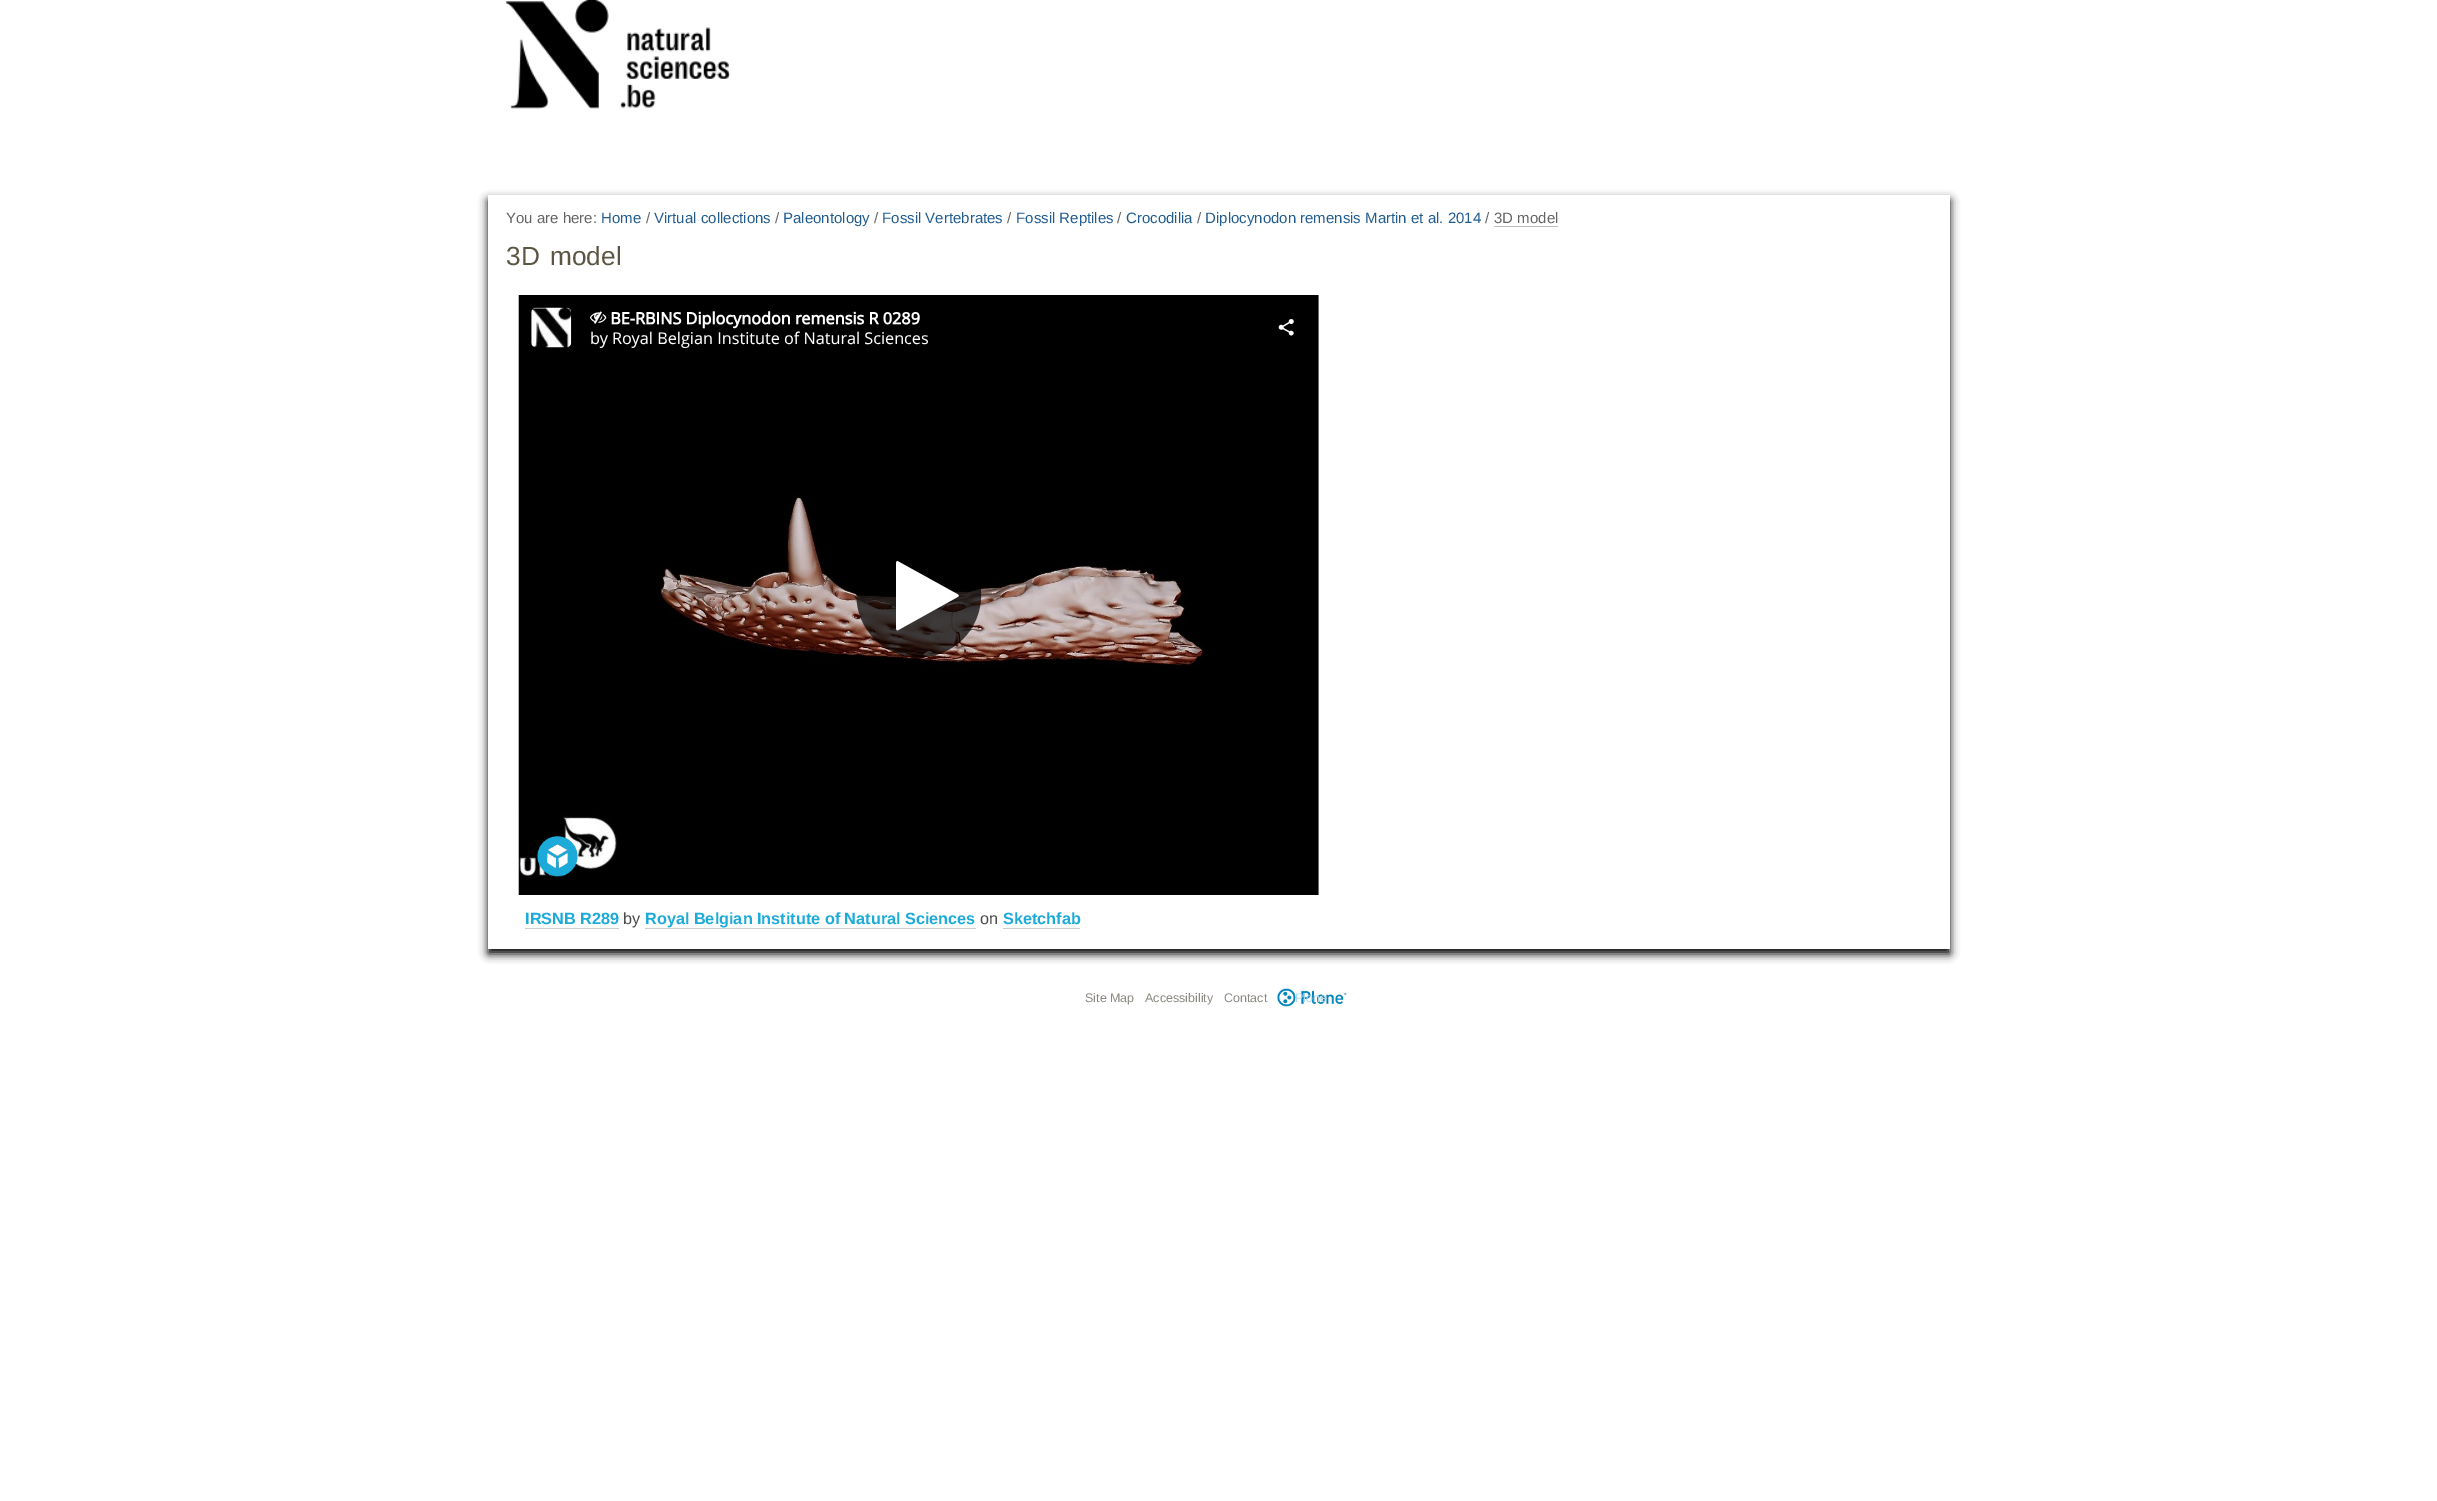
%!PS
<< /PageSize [2437 1501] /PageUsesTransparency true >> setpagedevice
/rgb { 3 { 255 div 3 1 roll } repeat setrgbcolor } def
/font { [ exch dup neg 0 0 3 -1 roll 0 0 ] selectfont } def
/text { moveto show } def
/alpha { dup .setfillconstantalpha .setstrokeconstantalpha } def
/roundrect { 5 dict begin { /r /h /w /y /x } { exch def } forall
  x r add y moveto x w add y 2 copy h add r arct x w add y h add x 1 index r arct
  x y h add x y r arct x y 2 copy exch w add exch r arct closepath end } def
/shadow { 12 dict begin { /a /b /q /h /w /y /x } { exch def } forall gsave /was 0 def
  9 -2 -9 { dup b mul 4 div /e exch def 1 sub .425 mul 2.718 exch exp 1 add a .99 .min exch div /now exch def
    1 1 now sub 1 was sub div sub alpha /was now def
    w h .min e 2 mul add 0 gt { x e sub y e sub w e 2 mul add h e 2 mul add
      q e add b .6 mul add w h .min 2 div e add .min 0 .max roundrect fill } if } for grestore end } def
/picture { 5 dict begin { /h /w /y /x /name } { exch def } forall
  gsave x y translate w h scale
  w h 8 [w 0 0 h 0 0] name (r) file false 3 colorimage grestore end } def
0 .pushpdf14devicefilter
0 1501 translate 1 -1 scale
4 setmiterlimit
255 255 255 rgb
0 0 2437 1501 rectfill
(img_01.rgb) 506 0 225 109 picture
0 0 0 rgb
488 200 1462 754 0 4.5 1 shadow
255 255 255 rgb
488 195 1462 754 rectfill
187 187 187 rgb
1494 226 64 1 rectfill
(img_02.rgb) 518 295 801 600 picture
204 204 204 rgb
525 928 94 1 rectfill
645 928 331 1 rectfill
1003 928 77 1 rectfill
(img_03.rgb) 1277 988 70 19 picture
/LiberationSans-Regular 15 font
99 100 102 rgb
(You are here:) 506 223 text
32 92 144 rgb
(Home) 601 223 text
99 100 102 rgb
(/) 646 223 text
32 92 144 rgb
(Virtual collections) 654 223 text
99 100 102 rgb
(/) 775 223 text
32 92 144 rgb
(Paleontology) 783 223 text
99 100 102 rgb
(/) 874 223 text
32 92 144 rgb
(Fossil Vertebrates) 882 223 text
99 100 102 rgb
(/) 1007 223 text
32 92 144 rgb
(Fossil Reptiles) 1016 223 text
99 100 102 rgb
(/) 1117 223 text
32 92 144 rgb
(Crocodilia) 1126 223 text
99 100 102 rgb
(/) 1197 223 text
32 92 144 rgb
(Diplocynodon remensis Martin et al. 2014) 1205 223 text
99 100 102 rgb
(/) 1485 223 text
(3D model) 1494 223 text
/LiberationSans-Regular 26.25 font
91 86 68 rgb
506 265 moveto 3 0 32 (3D model) widthshow
/LiberationSans-Bold 16.25 font
28 170 217 rgb
(IRSNB R289) 525 924 text
/LiberationSans-Regular 16.25 font
74 74 74 rgb
(by) 623 924 text
/LiberationSans-Bold 16.25 font
28 170 217 rgb
(Royal Belgian Institute of Natural Sciences) 645 924 text
/LiberationSans-Regular 16.25 font
74 74 74 rgb
(on) 980 924 text
/LiberationSans-Bold 16.25 font
28 170 217 rgb
(Sketchfab) 1003 924 text
/LiberationSans-Regular 12.5 font
140 136 130 rgb
(Site Map) 1085 1002 text
(Accessibility) 1145 1002 text
(Contact) 1224 1002 text
175 216 234 rgb
(Plone) 1295 1002 text
.poppdf14devicefilter showpage
